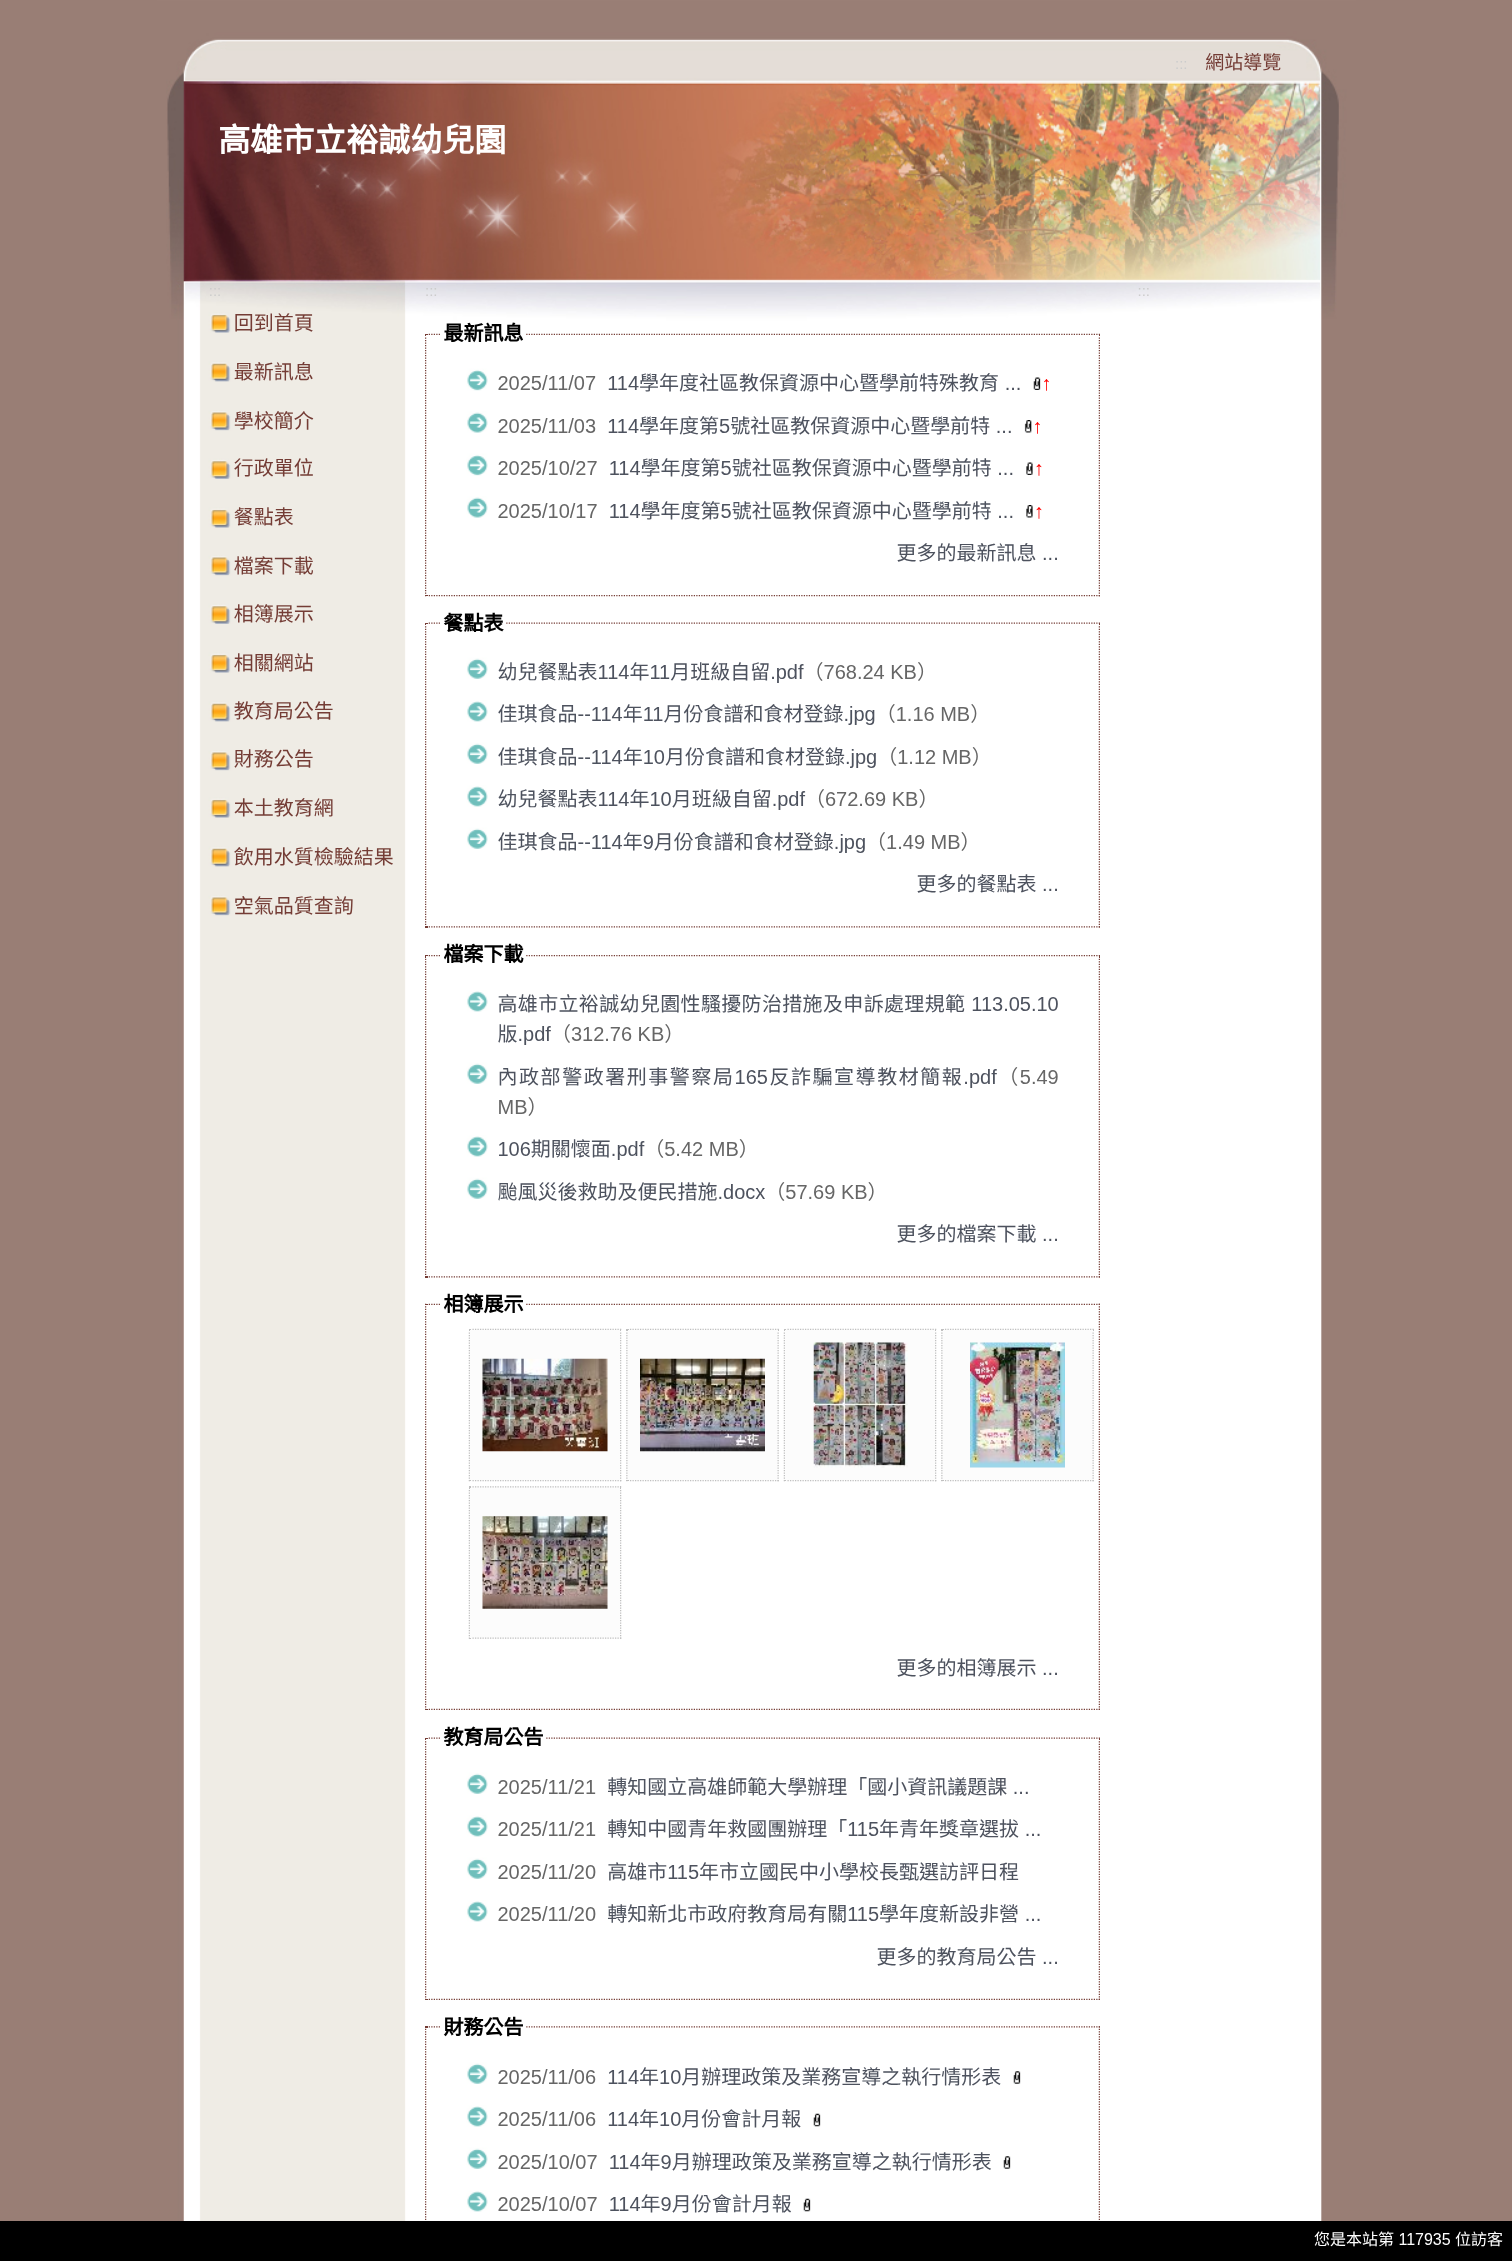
%!PS
<< /PageSize [1512 2261] >> setpagedevice
/rgb { 3 { 255 div 3 1 roll } repeat setrgbcolor } def
/picture { 5 dict begin { /h /w /y /x /name } { exch def } forall
  gsave x y translate w h scale
  w h 8 [w 0 0 h 0 0] name (r) file false 3 colorimage grestore end } def
0 2261 translate 1 -1 scale
4 setmiterlimit
255 255 255 rgb
0 0 1512 2261 rectfill
(img_01.rgb) 0 0 1512 2221 picture
(img_02.rgb) 0 2221 1512 40 picture
showpage
